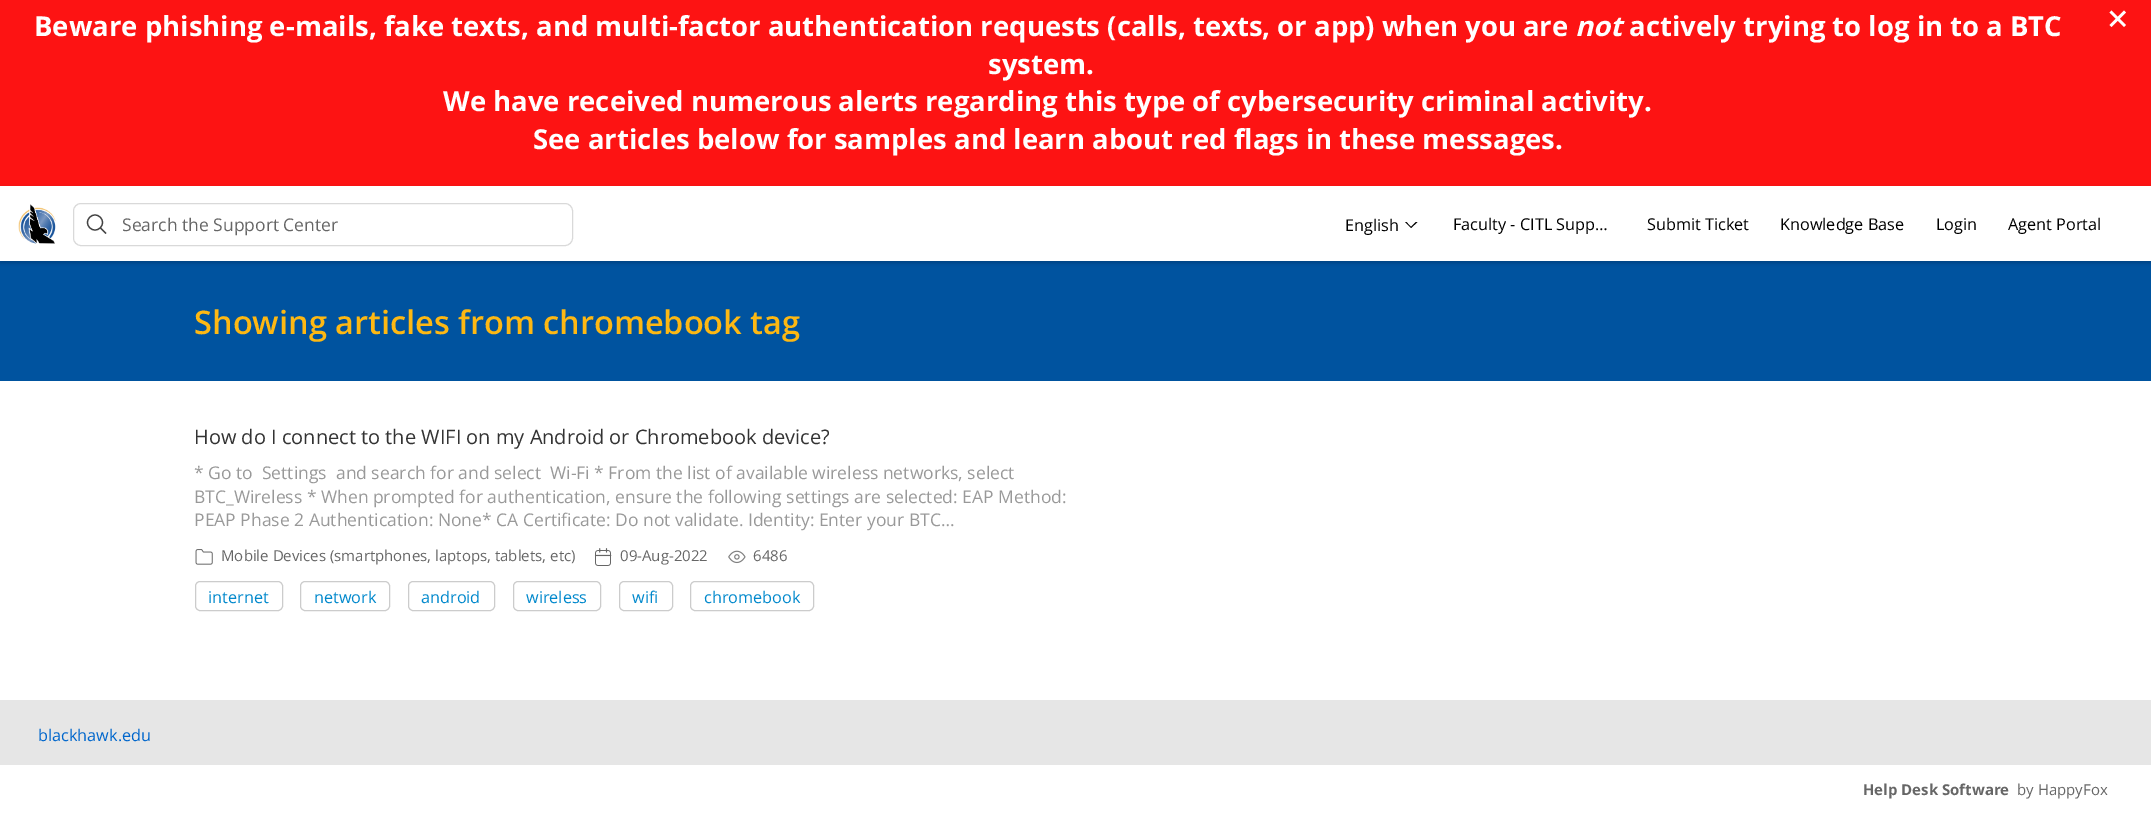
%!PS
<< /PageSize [2151 813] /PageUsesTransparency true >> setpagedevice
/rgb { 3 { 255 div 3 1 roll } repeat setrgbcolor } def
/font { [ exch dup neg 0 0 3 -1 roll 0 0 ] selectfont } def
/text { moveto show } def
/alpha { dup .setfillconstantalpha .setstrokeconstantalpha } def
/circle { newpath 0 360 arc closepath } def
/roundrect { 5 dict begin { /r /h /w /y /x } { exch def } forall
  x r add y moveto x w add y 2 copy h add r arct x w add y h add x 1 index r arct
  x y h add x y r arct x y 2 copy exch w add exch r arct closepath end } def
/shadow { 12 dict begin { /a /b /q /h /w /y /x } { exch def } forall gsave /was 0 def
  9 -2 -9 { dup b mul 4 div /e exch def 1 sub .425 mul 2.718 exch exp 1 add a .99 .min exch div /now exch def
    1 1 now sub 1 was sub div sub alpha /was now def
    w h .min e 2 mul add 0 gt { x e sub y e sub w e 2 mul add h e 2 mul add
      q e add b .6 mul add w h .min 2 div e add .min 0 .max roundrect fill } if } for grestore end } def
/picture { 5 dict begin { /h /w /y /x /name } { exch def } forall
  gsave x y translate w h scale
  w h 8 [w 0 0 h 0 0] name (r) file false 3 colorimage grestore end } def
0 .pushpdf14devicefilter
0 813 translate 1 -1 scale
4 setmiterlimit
255 255 255 rgb
0 0 2151 813 rectfill
253 19 19 rgb
0 0 2151 186 rectfill
255 255 255 rgb
2.5 setlinewidth
2125 11.5 moveto -14.5 14.5 rlineto 2125 26 moveto -14.5 -14.5 rlineto stroke
0 83 159 rgb
0 261 2151 120 rectfill
0 0 0 rgb
0 188 2151 75 0 2 0.2 shadow
255 255 255 rgb
0 186 2151 75 rectfill
(img_01.rgb) 18 204 38 40 picture
66 66 66 rgb
1.2 setlinewidth
95 222.5 7.5 circle stroke
2 setlinecap
101 228.5 moveto 4.5 4.5 rlineto stroke
217 217 217 rgb
1 setlinewidth
0 setlinecap
73.5 203.5 499 42 7.5 roundrect stroke
0 0 0 rgb
1405 222 moveto 12.5 0 rlineto -6.5 6 rlineto closepath fill
255 255 255 rgb
1405 220 moveto 12.5 0 rlineto -6.5 6.5 rlineto closepath fill
(img_02.rgb) 195 549 18 16 picture
(img_03.rgb) 594 548 18 18 picture
(img_04.rgb) 728 550 18 14 picture
204 204 204 rgb
195.5 581.5 87 29 4.5 roundrect stroke
300.5 581.5 89 29 4.5 roundrect stroke
408.5 581.5 86 29 4.5 roundrect stroke
513.5 581.5 87 29 4.5 roundrect stroke
619.5 581.5 53 29 4.5 roundrect stroke
690.5 581.5 123 29 4.5 roundrect stroke
230 230 230 rgb
0 700 2151 65 rectfill
/OpenSans-Bold 27.5 font
255 255 255 rgb
(Beware phishing e-mails, fake texts, and multi-factor authentication requests \(calls, texts, or app\) when you are) 34 36 text
/OpenSans-BoldItalic 27.5 font
(not) 1575 36 text
/OpenSans-Bold 27.5 font
(actively trying to log in to a BTC) 1629 36 text
(system.) 988 74 text
(We have received numerous alerts regarding this type of cybersecurity criminal activity.) 443 111 text
(See articles below for samples and learn about red flags in these messages.) 533 149 text
/OpenSans-Regular 17.5 font
102 102 102 rgb
(Search the Support Center) 122 231 text
/OpenSans-Regular 16.25 font
0 0 0 rgb
(English) 1345 231 text
(Faculty - CITL Supp…) 1453 230 text
(Submit Ticket) 1647 230 text
(Knowledge Base) 1780 230 text
(Login) 1936 230 text
(Agent Portal) 2008 230 text
/OpenSans-SemiBold 32.5 font
253 184 19 rgb
(Showing articles from chromebook tag) 194 334 text
/OpenSans-Regular 20 font
51 51 51 rgb
(How do I connect to the WIFI on my Android or Chromebook device?) 194 444 text
/OpenSans-Regular 17.5 font
153 153 153 rgb
(* Go to  Settings  and search for and select  Wi-Fi * From the list of available wireless networks, select) 194 479 text
(BTC_Wireless * When prompted for authentication, ensure the following settings are selected: EAP Method:) 194 503 text
(PEAP Phase 2 Authentication: None* CA Certificate: Do not validate. Identity: Enter your BTC…) 194 526 text
/OpenSans-Regular 15 font
102 102 102 rgb
(Mobile Devices \(smartphones, laptops, tablets, etc\)) 221 561 text
(09-Aug-2022) 620 561 text
(6486) 753 561 text
/OpenSans-Regular 16.25 font
0 136 204 rgb
(internet) 208 603 text
(network) 314 603 text
(android) 421 603 text
(wireless) 526 603 text
(wifi) 632 603 text
(chromebook) 704 603 text
0 102 204 rgb
(blackhawk.edu) 38 741 text
/OpenSans-Bold 15 font
102 102 102 rgb
(Help Desk Software) 1863 795 text
/OpenSans-Regular 15 font
(by HappyFox) 2017 795 text
.poppdf14devicefilter showpage
